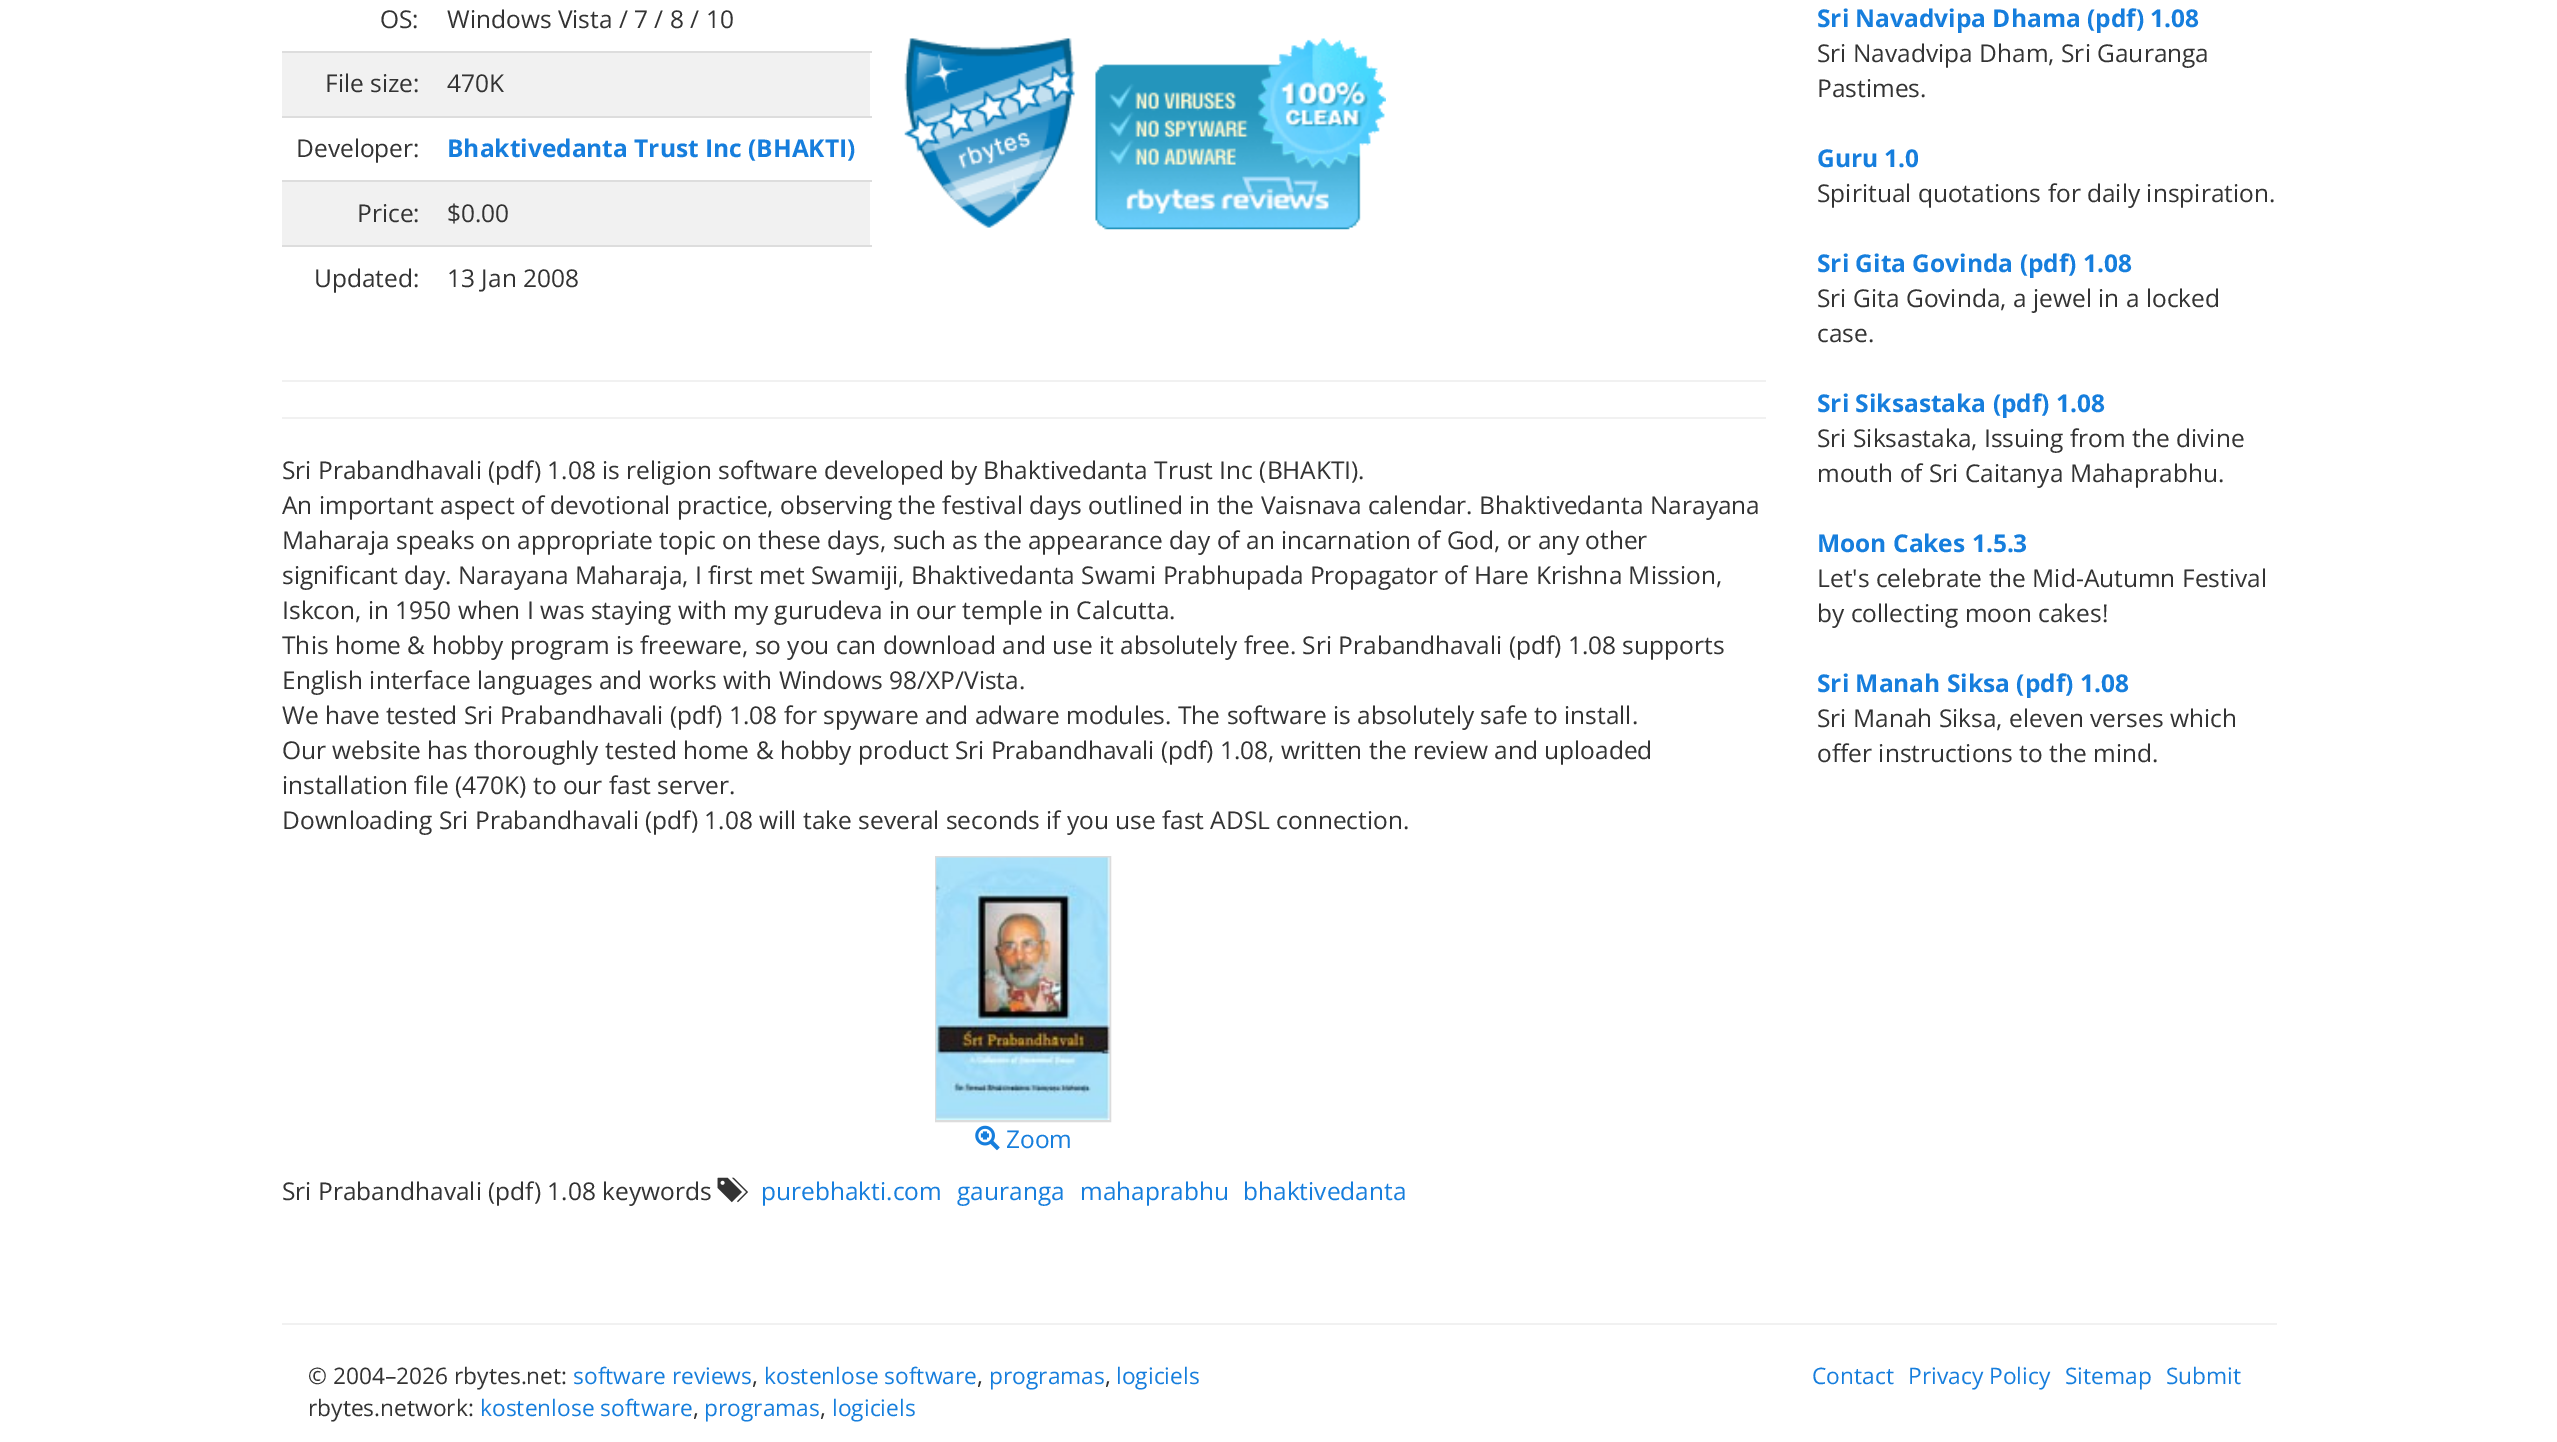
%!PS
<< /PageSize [2557 1442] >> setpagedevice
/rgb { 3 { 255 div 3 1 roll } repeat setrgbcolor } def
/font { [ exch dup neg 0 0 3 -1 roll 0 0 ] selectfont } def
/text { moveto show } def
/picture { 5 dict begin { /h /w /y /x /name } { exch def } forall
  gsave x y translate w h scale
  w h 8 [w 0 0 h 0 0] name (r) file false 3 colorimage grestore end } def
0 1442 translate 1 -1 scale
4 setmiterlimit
255 255 255 rgb
0 0 2557 1442 rectfill
241 241 241 rgb
282 53 588 63 rectfill
221 221 221 rgb
282 51 590 2 rectfill
282 116 590 2 rectfill
241 241 241 rgb
282 182 588 63 rectfill
221 221 221 rgb
282 180 590 2 rectfill
282 245 590 2 rectfill
(img_01.rgb) 904 38 171 190 picture
(img_02.rgb) 1095 38 291 192 picture
241 241 241 rgb
282 380 1484 2 rectfill
282 417 1484 2 rectfill
220 220 220 rgb
2 setlinewidth
936 857 174 264 rectstroke
(img_03.rgb) 936 857 174 263 picture
(img_04.rgb) 975 1125 25 26 picture
(img_05.rgb) 717 1177 31 26 picture
241 241 241 rgb
282 1323 1995 2 rectfill
/OpenSans-Regular 24.5 font
51 51 51 rgb
(OS:) 380 28 text
(Windows Vista / 7 / 8 / 10) 447 28 text
(File size:) 325 92 text
(470K) 447 92 text
(Developer:) 296 157 text
/OpenSans-Bold 24.5 font
22 126 221 rgb
(Bhaktivedanta Trust Inc \(BHAKTI\)) 447 157 text
/OpenSans-Regular 24.5 font
51 51 51 rgb
(Price:) 357 222 text
($0.00) 447 222 text
(Updated:) 314 287 text
(13 Jan 2008) 447 287 text
(Sri Prabandhavali \(pdf\) 1.08 is religion software developed by Bhaktivedanta Trust Inc \(BHAKTI\).) 282 479 text
(An important aspect of devotional practice, observing the festival days outlined in the Vaisnava calendar. Bhaktivedanta Narayana) 282 514 text
(Maharaja speaks on appropriate topic on these days, such as the appearance day of an incarnation of God, or any other) 282 549 text
(significant day. Narayana Maharaja, I first met Swamiji, Bhaktivedanta Swami Prabhupada Propagator of Hare Krishna Mission,) 282 584 text
(Iskcon, in 1950 when I was staying with my gurudeva in our temple in Calcutta.) 282 619 text
(This home & hobby program is freeware, so you can download and use it absolutely free. Sri Prabandhavali \(pdf\) 1.08 supports) 282 654 text
(English interface languages and works with Windows 98/XP/Vista.) 282 689 text
(We have tested Sri Prabandhavali \(pdf\) 1.08 for spyware and adware modules. The software is absolutely safe to install.) 282 724 text
(Our website has thoroughly tested home & hobby product Sri Prabandhavali \(pdf\) 1.08, written the review and uploaded) 282 759 text
(installation file \(470K\) to our fast server.) 282 794 text
(Downloading Sri Prabandhavali \(pdf\) 1.08 will take several seconds if you use fast ADSL connection.) 282 829 text
22 126 221 rgb
(Zoom) 1006 1148 text
51 51 51 rgb
(Sri Prabandhavali \(pdf\) 1.08 keywords) 282 1200 text
22 126 221 rgb
(purebhakti.com) 761 1200 text
(gauranga) 957 1200 text
(mahaprabhu) 1080 1200 text
(bhaktivedanta) 1243 1200 text
/OpenSans-Bold 24.5 font
(Sri Navadvipa Dhama \(pdf\) 1.08) 1817 27 text
/OpenSans-Regular 24.5 font
51 51 51 rgb
(Sri Navadvipa Dham, Sri Gauranga) 1817 62 text
(Pastimes.) 1817 97 text
/OpenSans-Bold 24.5 font
22 126 221 rgb
(Guru 1.0) 1817 167 text
/OpenSans-Regular 24.5 font
51 51 51 rgb
(Spiritual quotations for daily inspiration.) 1817 202 text
/OpenSans-Bold 24.5 font
22 126 221 rgb
(Sri Gita Govinda \(pdf\) 1.08) 1817 272 text
/OpenSans-Regular 24.5 font
51 51 51 rgb
(Sri Gita Govinda, a jewel in a locked) 1817 307 text
(case.) 1817 342 text
/OpenSans-Bold 24.5 font
22 126 221 rgb
(Sri Siksastaka \(pdf\) 1.08) 1817 412 text
/OpenSans-Regular 24.5 font
51 51 51 rgb
(Sri Siksastaka, Issuing from the divine) 1817 447 text
(mouth of Sri Caitanya Mahaprabhu.) 1817 482 text
/OpenSans-Bold 24.5 font
22 126 221 rgb
(Moon Cakes 1.5.3) 1817 552 text
/OpenSans-Regular 24.5 font
51 51 51 rgb
(Let's celebrate the Mid-Autumn Festival) 1817 587 text
(by collecting moon cakes!) 1817 622 text
/OpenSans-Bold 24.5 font
22 126 221 rgb
(Sri Manah Siksa \(pdf\) 1.08) 1817 692 text
/OpenSans-Regular 24.5 font
51 51 51 rgb
(Sri Manah Siksa, eleven verses which) 1817 727 text
(offer instructions to the mind.) 1817 762 text
/OpenSans-Regular 22.75 font
(© 2004–2026 rbytes.net:) 308 1384 text
22 126 221 rgb
(software reviews) 573 1384 text
51 51 51 rgb
(,) 752 1384 text
22 126 221 rgb
(kostenlose software) 764 1384 text
51 51 51 rgb
(,) 977 1384 text
22 126 221 rgb
(programas) 989 1384 text
51 51 51 rgb
(,) 1105 1384 text
22 126 221 rgb
(logiciels) 1116 1384 text
51 51 51 rgb
(rbytes.network:) 308 1416 text
22 126 221 rgb
(kostenlose software) 480 1416 text
51 51 51 rgb
(,) 693 1416 text
22 126 221 rgb
(programas) 704 1416 text
51 51 51 rgb
(,) 820 1416 text
22 126 221 rgb
(logiciels) 832 1416 text
(Contact) 1812 1384 text
(Privacy Policy) 1908 1384 text
(Sitemap) 2065 1384 text
(Submit) 2166 1384 text
showpage
